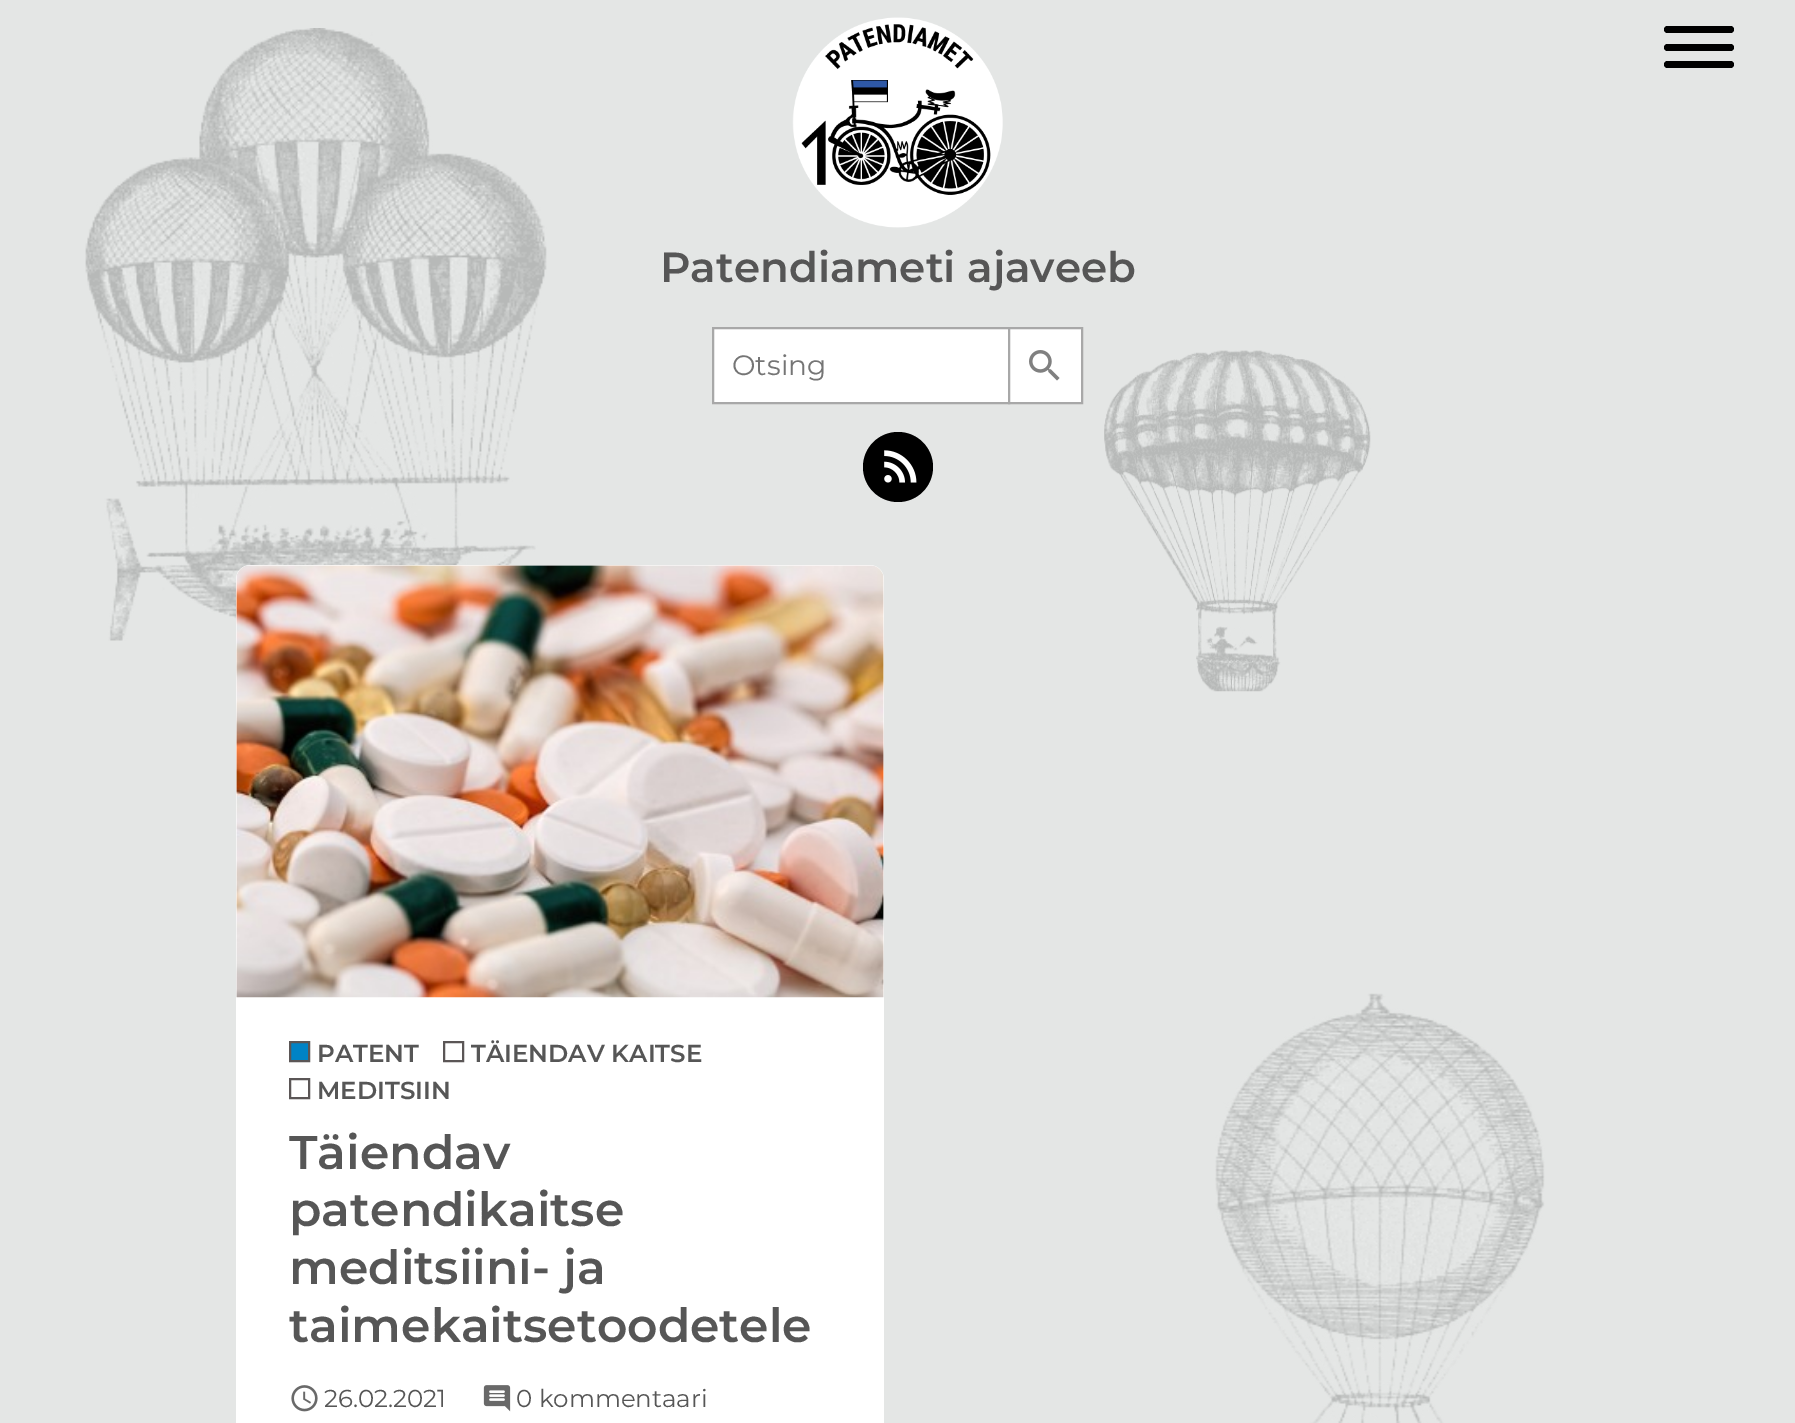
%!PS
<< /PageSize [1795 1423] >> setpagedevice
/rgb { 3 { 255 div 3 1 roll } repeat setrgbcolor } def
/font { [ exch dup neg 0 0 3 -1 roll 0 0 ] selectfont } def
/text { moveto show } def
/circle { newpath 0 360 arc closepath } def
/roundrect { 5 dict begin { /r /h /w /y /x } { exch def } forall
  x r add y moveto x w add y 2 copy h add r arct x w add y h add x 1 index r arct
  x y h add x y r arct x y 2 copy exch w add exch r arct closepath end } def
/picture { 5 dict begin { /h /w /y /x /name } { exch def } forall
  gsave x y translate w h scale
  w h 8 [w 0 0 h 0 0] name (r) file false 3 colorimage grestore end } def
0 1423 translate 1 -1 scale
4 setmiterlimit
228 230 229 rgb
0 0 1795 1423 rectfill
(img_01.rgb) 85 28 462 613 picture
0 0 0 rgb
1664 26 70 7 3.5 roundrect fill
1664 44 70 7 3.5 roundrect fill
1664 61 70 7 3.5 roundrect fill
(img_02.rgb) 792 17 211 211 picture
255 255 255 rgb
713 328 moveto 296 0 rlineto 0 75 rlineto -296 0 rlineto closepath gsave fill grestore
168 168 168 rgb
2 setlinewidth
stroke
255 255 255 rgb
1010 329 71 73 rectfill
(img_03.rgb) 1029 350 31 31 picture
168 168 168 rgb
1009 328 73 75 rectstroke
0 0 0 rgb
898 467 35 circle fill
(img_04.rgb) 884 450 33 33 picture
255 255 255 rgb
236 565 648 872 14 roundrect fill
(img_05.rgb) 236 565 648 433 picture
0 131 198 rgb
290 1042 moveto 19 0 rlineto 0 19 rlineto -19 0 rlineto closepath gsave fill grestore
91 86 86 rgb
stroke
444 1042 19 19 rectstroke
290 1079 19 19 rectstroke
(img_06.rgb) 291 1385 27 27 picture
(img_07.rgb) 483 1385 28 27 picture
(img_08.rgb) 1104 350 267 342 picture
(img_09.rgb) 1215 993 330 430 picture
/Montserrat-SemiBold 42 font
86 86 86 rgb
(Patendiameti ajaveeb) 660 282 text
/Montserrat-Regular 28 font
117 117 117 rgb
(Otsing) 732 375 text
/Montserrat-SemiBold 24.5 font
86 86 86 rgb
(PATENT) 317 1062 text
(TÄIENDAV KAITSE) 471 1062 text
(MEDITSIIN) 317 1099 text
/Montserrat-SemiBold 47.25 font
(Täiendav) 289 1169 text
(patendikaitse) 289 1226 text
(meditsiini- ja) 289 1284 text
(taimekaitsetoodetele) 289 1342 text
/Montserrat-Regular 24.5 font
(26.02.2021) 324 1407 text
(0 kommentaari) 516 1407 text
showpage
